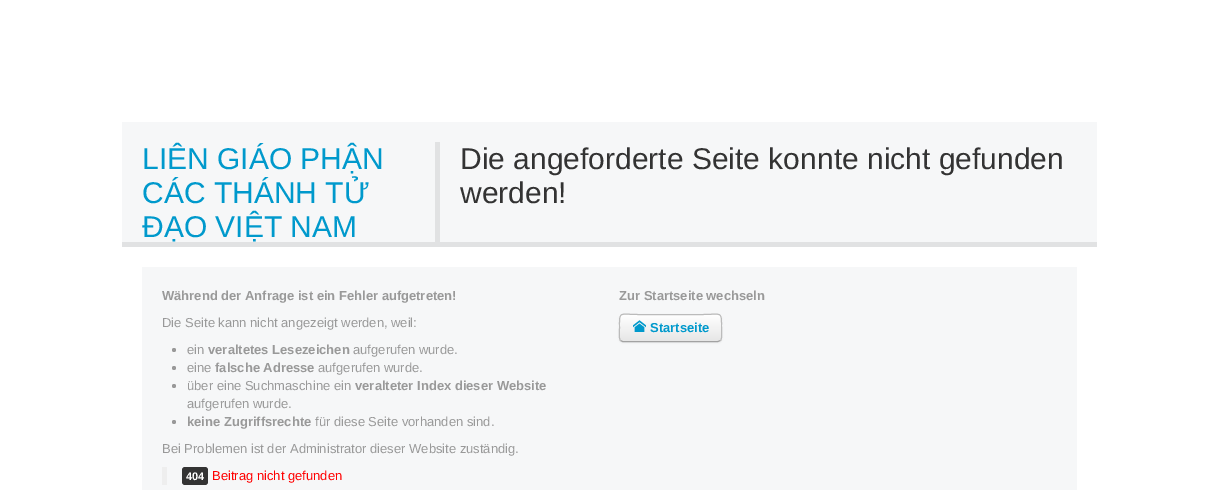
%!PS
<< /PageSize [1219 490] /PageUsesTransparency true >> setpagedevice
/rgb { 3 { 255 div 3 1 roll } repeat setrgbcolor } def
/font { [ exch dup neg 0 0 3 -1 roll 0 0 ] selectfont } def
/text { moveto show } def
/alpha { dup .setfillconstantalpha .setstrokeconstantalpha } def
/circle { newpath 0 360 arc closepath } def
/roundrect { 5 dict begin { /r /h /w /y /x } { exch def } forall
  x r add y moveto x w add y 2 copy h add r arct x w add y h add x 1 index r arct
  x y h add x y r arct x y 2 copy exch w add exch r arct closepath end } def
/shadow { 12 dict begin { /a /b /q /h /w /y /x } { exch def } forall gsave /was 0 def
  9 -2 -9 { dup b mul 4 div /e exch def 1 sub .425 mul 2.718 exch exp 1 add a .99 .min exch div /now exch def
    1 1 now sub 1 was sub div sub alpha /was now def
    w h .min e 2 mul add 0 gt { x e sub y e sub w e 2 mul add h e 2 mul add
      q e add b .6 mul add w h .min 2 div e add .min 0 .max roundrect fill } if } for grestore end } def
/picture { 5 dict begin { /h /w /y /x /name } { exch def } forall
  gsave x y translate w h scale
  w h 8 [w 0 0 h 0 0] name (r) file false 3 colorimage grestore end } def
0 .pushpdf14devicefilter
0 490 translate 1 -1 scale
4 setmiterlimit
255 255 255 rgb
0 0 1219 490 rectfill
246 247 248 rgb
122 122 975 120 rectfill
225 226 227 rgb
122 242 975 5 rectfill
435 142 5 102 rectfill
246 247 248 rgb
142 267 935 223 rectfill
153 153 153 rgb
174 350 2 circle fill
174 368 2 circle fill
174 386 2 circle fill
174 422 2 circle fill
0 0 0 rgb
619 315 103 28 4 1 0.05 shadow
245 245 245 rgb
619 314 103 28 4 roundrect fill
gsave
619 314 103 28 4 roundrect clip newpath
gsave 619 315 moveto 103 0 rlineto 0 26 rlineto -103 0 rlineto closepath clip newpath
<< /ShadingType 2 /ColorSpace /DeviceRGB /Coords [671 315 671 341] /Extend [true true] /Function << /FunctionType 2 /Domain [0 1] /C0 [1 1 1] /C1 [0.902 0.902 0.902] /N 1 >> >> shfill grestore
grestore
162 162 162 rgb
720.5 340.5 moveto -2.5 1 rlineto -95.5 0 rlineto -2 -1 rlineto stroke
187 187 187 rgb
620.5 340.5 moveto -2 -2.5 -1 -10 -1 -12.5 rcurveto 0 -17.5 -1 -13.5 19.5 -13.5 rcurveto 63 0 rlineto 20.5 0 19.5 -4 19.5 13.5 rcurveto 0 2.5 1 10 -1 12.5 rcurveto stroke
(img_01.rgb) 633 320 13 12 picture
238 238 238 rgb
162 467 5 18 rectfill
51 51 51 rgb
182 467 26 18 3 roundrect fill
/LiberationSans-Regular 30 font
0 153 204 rgb
(LIÊN GIÁO PHẬN) 142 169 text
(CÁC THÁNH TỬ) 142 203 text
(ĐẠO VIỆT NAM) 142 237 text
51 51 51 rgb
(Die angeforderte Seite konnte nicht gefunden) 460 169 text
(werden!) 460 203 text
/LiberationSans-Bold 13 font
153 153 153 rgb
(Während der Anfrage ist ein Fehler aufgetreten!) 162 300 text
/LiberationSans-Regular 13 font
(Die Seite kann nicht angezeigt werden, weil:) 162 327 text
(ein) 187 354 text
/LiberationSans-Bold 13 font
(veraltetes Lesezeichen) 208 354 text
/LiberationSans-Regular 13 font
(aufgerufen wurde.) 353 354 text
(eine) 187 372 text
/LiberationSans-Bold 13 font
(falsche Adresse) 215 372 text
/LiberationSans-Regular 13 font
(aufgerufen wurde.) 318 372 text
(über eine Suchmaschine ein) 187 390 text
/LiberationSans-Bold 13 font
(veralteter Index dieser Website) 355 390 text
/LiberationSans-Regular 13 font
(aufgerufen wurde.) 187 408 text
/LiberationSans-Bold 13 font
(keine Zugriffsrechte) 187 426 text
/LiberationSans-Regular 13 font
(für diese Seite vorhanden sind.) 315 426 text
/LiberationSans-Bold 13 font
(Zur Startseite wechseln) 619 300 text
0 153 204 rgb
(Startseite) 650 332 text
/LiberationSans-Regular 13 font
153 153 153 rgb
(Bei Problemen ist der Administrator dieser Website zuständig.) 162 453 text
/LiberationSans-Bold 11 font
255 255 255 rgb
(404) 186 480 text
/LiberationSans-Regular 13 font
255 0 0 rgb
(Beitrag nicht gefunden) 212 480 text
.poppdf14devicefilter showpage
